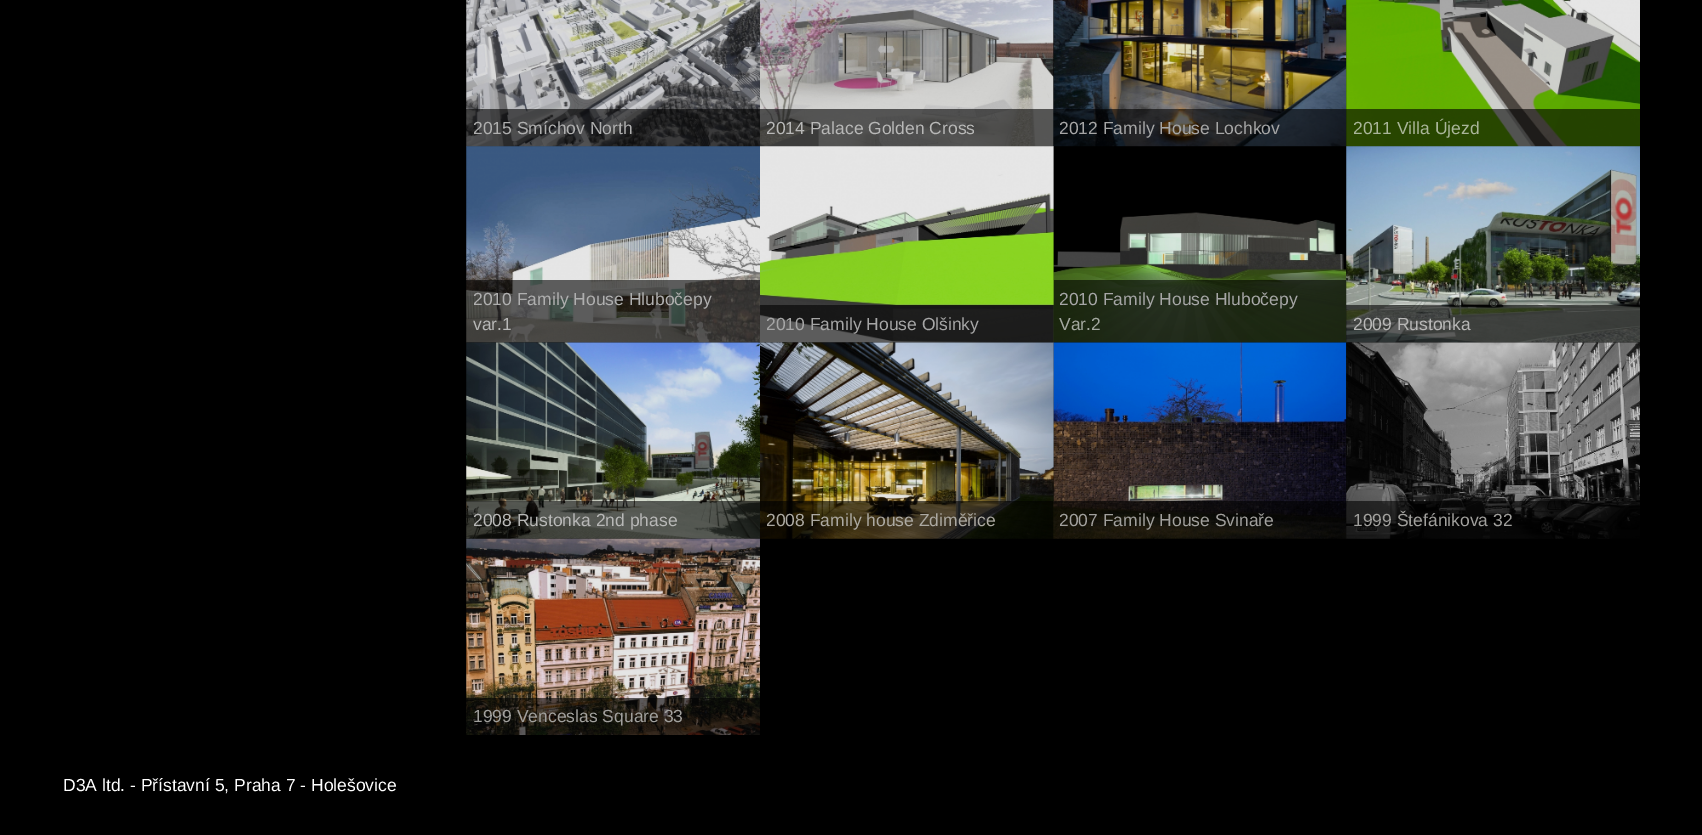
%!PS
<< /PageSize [1702 835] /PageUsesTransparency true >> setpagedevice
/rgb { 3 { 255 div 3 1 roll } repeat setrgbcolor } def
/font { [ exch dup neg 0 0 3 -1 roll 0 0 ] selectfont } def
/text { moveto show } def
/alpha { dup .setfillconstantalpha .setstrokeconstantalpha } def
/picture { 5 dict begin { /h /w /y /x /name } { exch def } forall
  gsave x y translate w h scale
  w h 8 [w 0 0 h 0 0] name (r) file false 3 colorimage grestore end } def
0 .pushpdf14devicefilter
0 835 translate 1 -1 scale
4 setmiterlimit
0 0 0 rgb
0 0 1702 835 rectfill
(img_01.rgb) 466 0 294 147 picture
0.6 alpha
466 109 294 37 rectfill
1 alpha
(img_02.rgb) 760 0 294 147 picture
0.6 alpha
760 109 294 37 rectfill
1 alpha
(img_03.rgb) 1053 0 294 147 picture
0.6 alpha
1054 109 292 37 rectfill
1 alpha
(img_04.rgb) 1346 0 294 147 picture
0.6 alpha
1346 109 294 37 rectfill
1 alpha
(img_05.rgb) 466 146 294 197 picture
0.6 alpha
466 280 294 63 rectfill
1 alpha
(img_06.rgb) 760 146 294 197 picture
0.6 alpha
760 305 294 38 rectfill
1 alpha
(img_07.rgb) 1053 146 294 197 picture
0.6 alpha
1054 280 292 63 rectfill
1 alpha
(img_08.rgb) 1346 146 294 197 picture
0.6 alpha
1346 305 294 38 rectfill
1 alpha
(img_09.rgb) 466 342 294 197 picture
0.6 alpha
466 501 294 38 rectfill
1 alpha
(img_10.rgb) 760 342 294 197 picture
0.6 alpha
760 501 294 38 rectfill
1 alpha
(img_11.rgb) 1053 342 294 197 picture
0.6 alpha
1054 501 292 38 rectfill
1 alpha
(img_12.rgb) 1346 342 294 197 picture
0.6 alpha
1346 501 294 38 rectfill
1 alpha
(img_13.rgb) 466 538 294 197 picture
0.6 alpha
466 698 294 37 rectfill
/LiberationSans-Regular 17.5 font
1 alpha
175 175 175 rgb
(2015 Smíchov North) 473 134 text
184 184 183 rgb
(2014 Palace Golden Cross) 766 134 text
166 166 166 rgb
(2012 Family House Lochkov) 1059 134 text
169 181 153 rgb
(2011 Villa Újezd) 1353 134 text
175 175 175 rgb
(2010 Family House Hlubočepy) 473 305 text
184 184 183 rgb
(var.1) 473 330 text
166 166 166 rgb
(2010 Family House Olšinky) 766 330 text
(2010 Family House Hlubočepy) 1059 305 text
164 169 160 rgb
(Var.2) 1059 330 text
184 184 183 rgb
(2009 Rustonka) 1353 330 text
(2008 Rustonka 2nd phase) 473 526 text
172 169 162 rgb
(2008 Family house Zdiměřice) 766 526 text
161 160 157 rgb
(2007 Family House Svinaře) 1059 526 text
(1999 Štefánikova 32) 1353 526 text
(1999 Venceslas Square 33) 473 722 text
255 255 255 rgb
(D3A ltd. - Přístavní 5, Praha 7 - Holešovice) 63 791 text
.poppdf14devicefilter showpage
